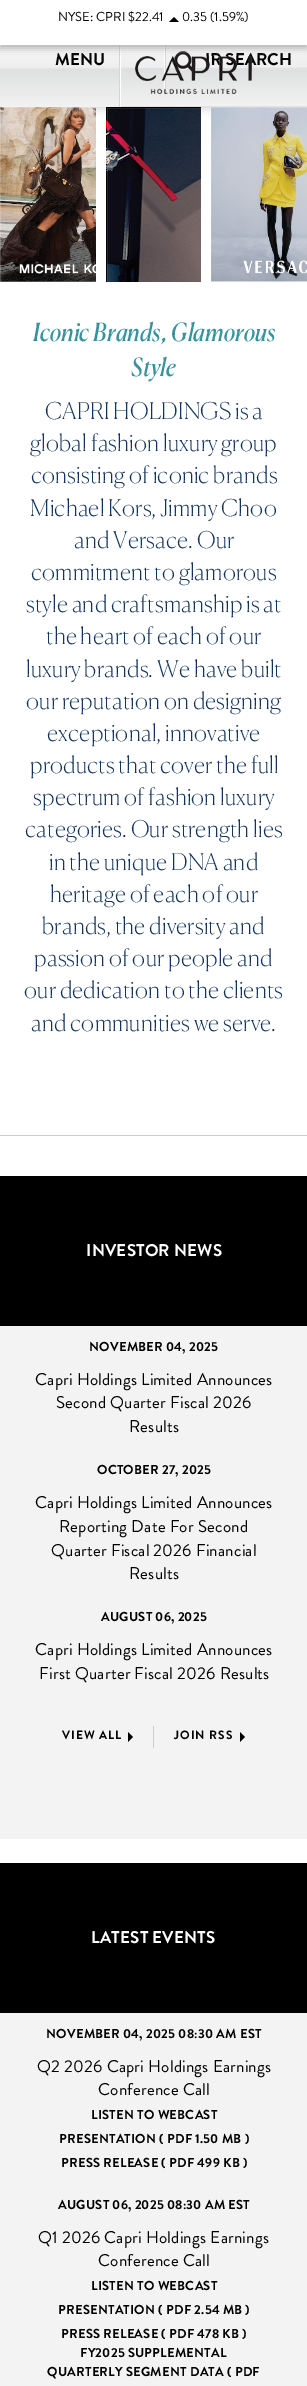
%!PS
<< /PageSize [307 2386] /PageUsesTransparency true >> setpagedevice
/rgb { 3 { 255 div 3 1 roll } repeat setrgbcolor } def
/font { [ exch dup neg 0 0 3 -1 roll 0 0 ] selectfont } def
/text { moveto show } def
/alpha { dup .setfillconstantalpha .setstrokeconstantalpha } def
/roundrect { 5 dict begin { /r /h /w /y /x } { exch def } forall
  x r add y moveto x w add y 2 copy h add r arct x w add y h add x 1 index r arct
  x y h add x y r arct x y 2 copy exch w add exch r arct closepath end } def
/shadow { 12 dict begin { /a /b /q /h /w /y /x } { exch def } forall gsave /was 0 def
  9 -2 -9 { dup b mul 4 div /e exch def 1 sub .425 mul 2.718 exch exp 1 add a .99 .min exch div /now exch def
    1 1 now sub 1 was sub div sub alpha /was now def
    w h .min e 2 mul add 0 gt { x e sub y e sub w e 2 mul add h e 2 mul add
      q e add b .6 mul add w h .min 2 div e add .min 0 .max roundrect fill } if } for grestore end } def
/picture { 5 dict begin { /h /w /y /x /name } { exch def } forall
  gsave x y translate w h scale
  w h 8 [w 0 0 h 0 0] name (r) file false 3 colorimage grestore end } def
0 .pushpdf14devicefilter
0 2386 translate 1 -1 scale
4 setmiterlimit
255 255 255 rgb
0 0 307 2386 rectfill
170 170 170 rgb
3 31 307 78 0 4 0.5 shadow
gsave 121 45 moveto 186 0 rlineto 0 61 rlineto -186 0 rlineto closepath clip newpath
<< /ShadingType 2 /ColorSpace /DeviceRGB /Coords [154 29 154 106] /Extend [true true] /Function << /FunctionType 3 /Domain [0 1] /Functions [<< /FunctionType 2 /Domain [0 1] /C0 [1 1 1] /C1 [0.937 0.933 0.937] /N 1 >> << /FunctionType 2 /Domain [0 1] /C0 [0.937 0.933 0.937] /C1 [0.871 0.875 0.878] /N 1 >> << /FunctionType 2 /Domain [0 1] /C0 [0.871 0.875 0.878] /C1 [0.949 0.949 0.949] /N 1 >>] /Bounds [0.5 0.51] /Encode [0 1 0 1 0 1] >> >> shfill grestore
gsave 0 45 moveto 119 0 rlineto 0 62 rlineto -119 0 rlineto closepath clip newpath
<< /ShadingType 2 /ColorSpace /DeviceRGB /Coords [60 29 60 107] /Extend [true true] /Function << /FunctionType 3 /Domain [0 1] /Functions [<< /FunctionType 2 /Domain [0 1] /C0 [1 1 1] /C1 [0.937 0.933 0.937] /N 1 >> << /FunctionType 2 /Domain [0 1] /C0 [0.937 0.933 0.937] /C1 [0.871 0.875 0.878] /N 1 >> << /FunctionType 2 /Domain [0 1] /C0 [0.871 0.875 0.878] /C1 [0.949 0.949 0.949] /N 1 >>] /Bounds [0.5 0.51] /Encode [0 1 0 1 0 1] >> >> shfill grestore
255 255 255 rgb
120 45 1 62 rectfill
214 214 214 rgb
119 104 1 3 rectfill
255 255 255 rgb
164 45 1 49 rectfill
214 214 214 rgb
165 45 1 49 rectfill
(img_01.rgb) 174 51 22 22 picture
(img_03.rgb) 0 107 96 175 picture
(img_04.rgb) 106 107 95 175 picture
(img_05.rgb) 211 107 96 175 picture
204 204 204 rgb
0 1135 307 1 rectfill
243 243 243 rgb
0 1326 307 513 rectfill
0 0 0 rgb
0 1176 307 150 rectfill
204 204 204 rgb
153 1726 1 22 rectfill
0 0 0 rgb
128 1742 moveto 0 -10 rlineto 5 5 rlineto closepath fill
240 1742 moveto 0 -10 rlineto 5 5 rlineto closepath fill
243 243 243 rgb
0 2013 307 373 rectfill
0 0 0 rgb
0 1863 307 150 rectfill
/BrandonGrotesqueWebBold-Regular 17 font
(MENU) 55 65 text
(IR SEARCH) 205 65 text
(img_02.rgb) 135 56 117 38 picture
170 170 170 rgb
0 3 307 45 0 4 1 shadow
255 255 255 rgb
0 0 307 45 rectfill
0 0 0 rgb
179 22 moveto -10 0 rlineto 5 -5 rlineto closepath fill
/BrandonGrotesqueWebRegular-Regular 13 font
(0.35) 182 21 text
(\(1.59%\)) 210 21 text
(NYSE: CPRI $22.41) 58 21 text
/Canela-Italic 25 font
54 147 157 rgb
33 341 moveto 0.2 0 (Iconic Brands, Glamorous) ashow
131 376 moveto 0.2 0 (Style) ashow
/Canela-ThinItalic 23 font
18 51 92 rgb
45 419 moveto 0.2 0 (CAPRI HOLDINGS is a) ashow
30 451 moveto 0.2 0 (global fashion luxury group) ashow
31 483 moveto 0.2 0 (consisting of iconic brands) ashow
30 516 moveto 0.2 0 (Michael Kors, Jimmy Choo) ashow
74 548 moveto 0.2 0 (and Versace. Our) ashow
31 580 moveto 0.2 0 (commitment to glamorous) ashow
26 612 moveto 0.2 0 (style and craftsmanship is at) ashow
46 644 moveto 0.2 0 (the heart of each of our) ashow
26 677 moveto 0.2 0 (luxury brands. We have built) ashow
26 709 moveto 0.2 0 (our reputation on designing) ashow
47 741 moveto 0.2 0 (exceptional, innovative) ashow
30 773 moveto 0.2 0 (products that cover the full) ashow
33 805 moveto 0.2 0 (spectrum of fashion luxury) ashow
25 837 moveto 0.2 0 (categories. Our strength lies) ashow
49 870 moveto 0.2 0 (in the unique DNA and) ashow
50 902 moveto 0.2 0 (heritage of each of our) ashow
42 934 moveto 0.2 0 (brands, the diversity and) ashow
34 966 moveto 0.2 0 (passion of our people and) ashow
24 998 moveto 0.2 0 (our dedication to the clients) ashow
31 1031 moveto 0.2 0 (and communities we serve.) ashow
/BrandonGrotesqueWebBold-Regular 17 font
255 255 255 rgb
86 1256 moveto 0.2 0 (INVESTOR NEWS) ashow
/BrandonGrotesqueWebBold-Regular 13 font
0 0 0 rgb
89 1351 moveto 0.2 0 (NOVEMBER 04, 2025) ashow
/BrandonGrotesqueWebRegular-Regular 17 font
35 1385 moveto 0.2 0 (Capri Holdings Limited Announces) ashow
56 1408 moveto 0.2 0 (Second Quarter Fiscal 2026) ashow
129 1432 moveto 0.2 0 (Results) ashow
/BrandonGrotesqueWebBold-Regular 13 font
97 1474 moveto 0.2 0 (OCTOBER 27, 2025) ashow
/BrandonGrotesqueWebRegular-Regular 17 font
35 1508 moveto 0.2 0 (Capri Holdings Limited Announces) ashow
59 1532 moveto 0.2 0 (Reporting Date For Second) ashow
51 1556 moveto 0.2 0 (Quarter Fiscal 2026 Financial) ashow
129 1579 moveto 0.2 0 (Results) ashow
/BrandonGrotesqueWebBold-Regular 13 font
101 1621 moveto 0.2 0 (AUGUST 06, 2025) ashow
/BrandonGrotesqueWebRegular-Regular 17 font
35 1655 moveto 0.2 0 (Capri Holdings Limited Announces) ashow
39 1679 moveto 0.2 0 (First Quarter Fiscal 2026 Results) ashow
/BrandonGrotesqueWebBold-Regular 12 font
62 1739 moveto 1 0 (VIEW ALL) ashow
174 1739 moveto 1 0 (JOIN RSS) ashow
/BrandonGrotesqueWebBold-Regular 17 font
255 255 255 rgb
91 1943 moveto 0.2 0 (LATEST EVENTS) ashow
/BrandonGrotesqueWebBold-Regular 13 font
0 0 0 rgb
46 2038 moveto 0.2 0 (NOVEMBER 04, 2025 08:30 AM EST) ashow
/BrandonGrotesqueWebRegular-Regular 17 font
37 2072 moveto 0.2 0 (Q2 2026 Capri Holdings Earnings) ashow
98 2095 moveto 0.2 0 (Conference Call) ashow
/BrandonGrotesqueWebBold-Regular 13 font
91 2119 moveto 0.2 0 (LISTEN TO WEBCAST) ashow
59 2143 moveto 0.2 0 (PRESENTATION \( PDF 1.50 MB \)) ashow
61 2167 moveto 0.2 0 (PRESS RELEASE \( PDF 499 KB \)) ashow
58 2209 moveto 0.2 0 (AUGUST 06, 2025 08:30 AM EST) ashow
/BrandonGrotesqueWebRegular-Regular 17 font
38 2243 moveto 0.2 0 (Q1 2026 Capri Holdings Earnings) ashow
98 2266 moveto 0.2 0 (Conference Call) ashow
/BrandonGrotesqueWebBold-Regular 13 font
91 2290 moveto 0.2 0 (LISTEN TO WEBCAST) ashow
58 2314 moveto 0.2 0 (PRESENTATION \( PDF 2.54 MB \)) ashow
61 2338 moveto 0.2 0 (PRESS RELEASE \( PDF 478 KB \)) ashow
80 2357 moveto 0.2 0 (FY2025 SUPPLEMENTAL) ashow
47 2376 moveto 0.2 0 (QUARTERLY SEGMENT DATA \( PDF) ashow
.poppdf14devicefilter showpage
